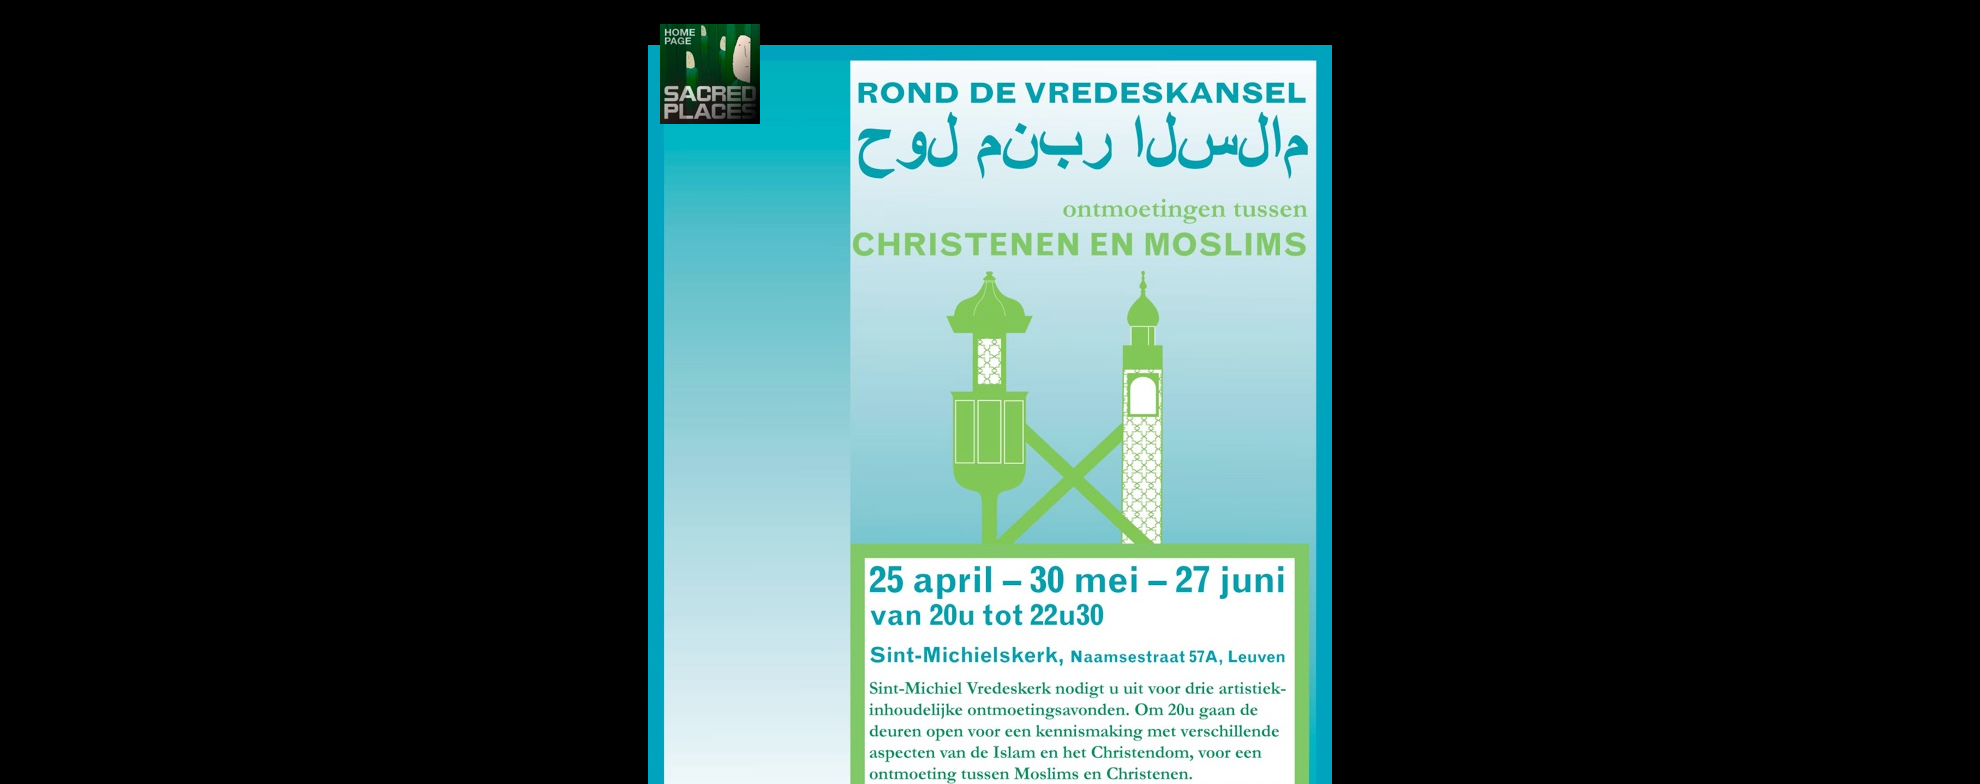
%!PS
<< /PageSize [1980 784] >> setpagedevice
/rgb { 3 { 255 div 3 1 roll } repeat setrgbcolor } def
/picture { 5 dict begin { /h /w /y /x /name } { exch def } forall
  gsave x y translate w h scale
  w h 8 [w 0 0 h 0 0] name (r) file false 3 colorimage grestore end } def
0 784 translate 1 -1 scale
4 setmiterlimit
0 0 0 rgb
0 0 1980 784 rectfill
(img_02.rgb) 648 45 684 739 picture
(img_01.rgb) 660 24 100 100 picture
showpage
